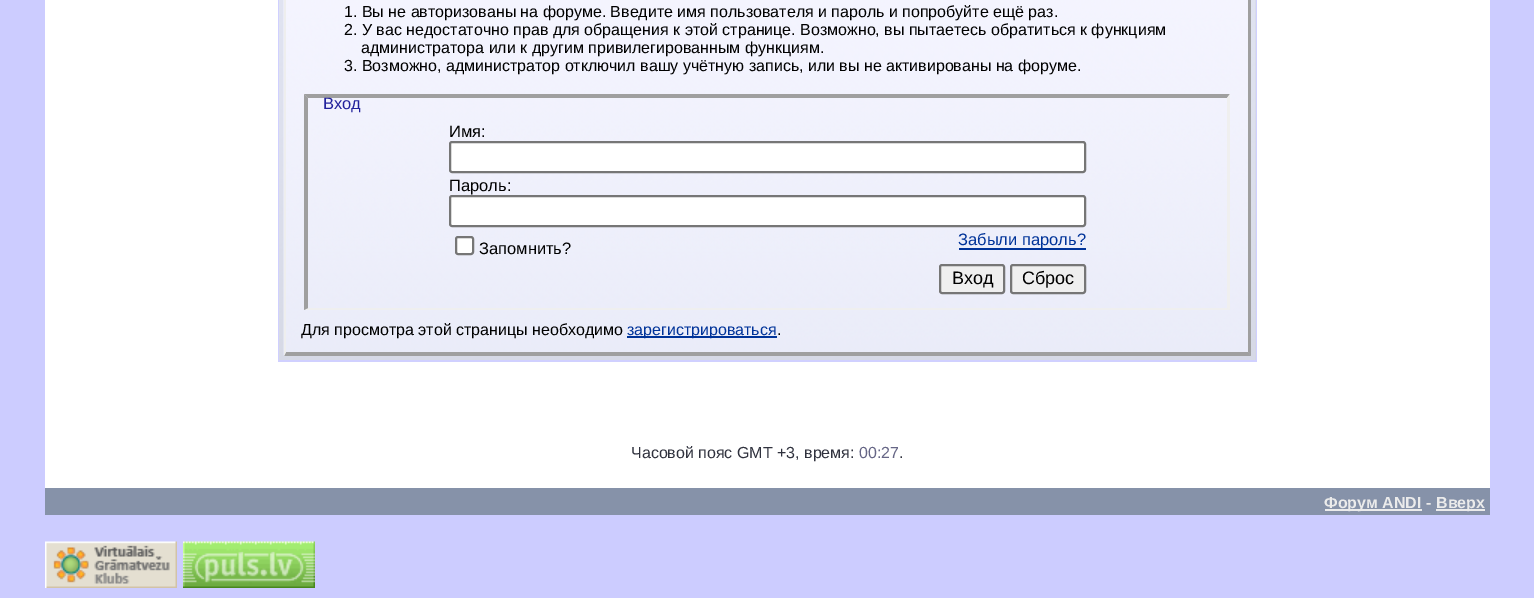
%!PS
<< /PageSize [1534 598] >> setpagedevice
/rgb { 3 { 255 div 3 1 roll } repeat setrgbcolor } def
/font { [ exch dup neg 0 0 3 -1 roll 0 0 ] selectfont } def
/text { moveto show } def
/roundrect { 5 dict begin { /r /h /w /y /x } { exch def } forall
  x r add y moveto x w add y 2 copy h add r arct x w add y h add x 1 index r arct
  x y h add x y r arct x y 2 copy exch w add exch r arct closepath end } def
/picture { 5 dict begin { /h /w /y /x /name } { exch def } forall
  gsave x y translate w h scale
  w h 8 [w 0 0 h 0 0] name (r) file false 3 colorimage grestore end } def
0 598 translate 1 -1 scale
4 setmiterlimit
204 204 255 rgb
0 0 1534 598 rectfill
255 255 255 rgb
45 0 1445 488 rectfill
208 208 255 rgb
278 0 979 362 rectfill
209 212 224 rgb
1255 0 1 360 rectfill
(img_01.rgb) 279 0 977 360 picture
(img_02.rgb) 283 0 968 356 picture
159 159 159 rgb
1251 -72 moveto 0 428 rlineto -3 -4 rlineto 0 -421 rlineto closepath fill
1251 356 moveto -967 0 rlineto 2 -4 rlineto 962 0 rlineto closepath fill
238 238 238 rgb
284 356 moveto 0 -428 rlineto 2 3 rlineto 0 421 rlineto closepath fill
159 159 159 rgb
304 94 moveto 926 0 rlineto -3 4 rlineto -919 0 rlineto closepath fill
239 239 239 rgb
1230 94 moveto 0 216 rlineto -3 -2 rlineto 0 -210 rlineto closepath fill
1230 310 moveto -926 0 rlineto 4 -2 rlineto 919 0 rlineto closepath fill
159 159 159 rgb
304 310 moveto 0 -216 rlineto 4 4 rlineto 0 210 rlineto closepath fill
255 255 255 rgb
450 142 635 30 2 roundrect gsave fill grestore
118 118 118 rgb
2 setlinewidth
stroke
255 255 255 rgb
450 196 635 30 2 roundrect gsave fill grestore
118 118 118 rgb
stroke
255 255 255 rgb
456 237 17 17 2 roundrect gsave fill grestore
118 118 118 rgb
stroke
0 51 153 rgb
959 248 127 2 rectfill
239 239 239 rgb
940 265 64 28 2 roundrect gsave fill grestore
118 118 118 rgb
stroke
239 239 239 rgb
1011 265 74 28 2 roundrect gsave fill grestore
118 118 118 rgb
stroke
0 51 153 rgb
627 336 150 2 rectfill
134 146 169 rgb
45 488 1445 27 rectfill
235 235 235 rgb
1325 509 97 2 rectfill
1436 509 49 2 rectfill
(img_03.rgb) 45 541 132 47 picture
(img_04.rgb) 183 541 132 47 picture
/LiberationSans-Regular 16 font
0 0 0 rgb
(1. Вы не авторизованы на форуме. Введите имя пользователя и пароль и попробуйте ещё раз.) 344 17 text
(2. У вас недостаточно прав для обращения к этой странице. Возможно, вы пытаетесь обратиться к функциям) 344 35 text
(администратора или к другим привилегированным функциям.) 361 53 text
(3. Возможно, администратор отключил вашу учётную запись, или вы не активированы на форуме.) 344 71 text
/LiberationSans-Regular 16.5 font
34 34 156 rgb
(Вход) 323 109 text
0 0 0 rgb
(Имя:) 449 137 text
(Пароль:) 449 191 text
(Запомнить?) 479 254 text
0 51 153 rgb
(Забыли пароль?) 958 245 text
/LiberationSans-Regular 18 font
0 0 0 rgb
(Вход) 952 284 text
(Сброс) 1022 284 text
/LiberationSans-Regular 16 font
(Для просмотра этой страницы необходимо) 301 335 text
0 51 153 rgb
(зарегистрироваться) 627 335 text
0 0 0 rgb
(.) 777 335 text
48 50 62 rgb
(Часовой пояс GMT +3, время:) 631 458 text
102 102 134 rgb
(00:27) 859 458 text
48 50 62 rgb
(.) 899 458 text
/LiberationSans-Bold 16 font
235 235 235 rgb
(Форум ANDI -) 1324 508 text
(Вверх) 1436 508 text
showpage
